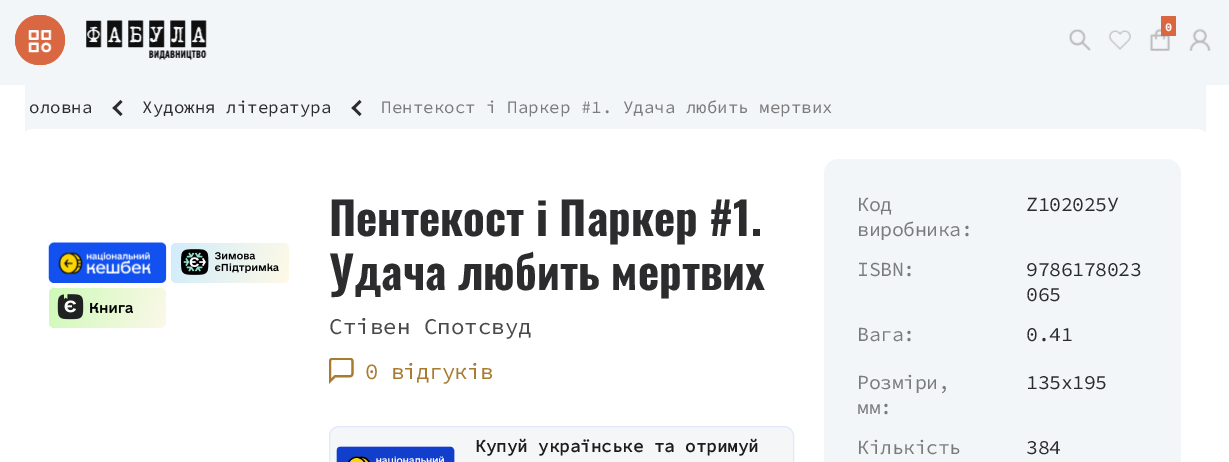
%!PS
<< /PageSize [1229 462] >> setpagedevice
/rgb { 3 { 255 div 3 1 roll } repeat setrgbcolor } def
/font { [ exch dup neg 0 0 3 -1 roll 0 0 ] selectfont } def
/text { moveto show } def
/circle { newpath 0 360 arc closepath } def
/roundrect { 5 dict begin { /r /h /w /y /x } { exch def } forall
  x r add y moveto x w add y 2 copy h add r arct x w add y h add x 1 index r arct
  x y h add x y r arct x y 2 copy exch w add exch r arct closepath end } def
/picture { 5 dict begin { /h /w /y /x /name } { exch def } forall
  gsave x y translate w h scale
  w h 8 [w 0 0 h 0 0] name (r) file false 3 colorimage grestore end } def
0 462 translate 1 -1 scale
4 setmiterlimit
242 246 249 rgb
0 0 1229 462 rectfill
217 103 65 rgb
40 15 moveto -33 0 -33 50 0 50 rcurveto 33 0 33 -50 0 -50 rcurveto closepath fill
40 40 25 circle fill
(img_01.rgb) 28 30 24 23 picture
(img_02.rgb) 86 20 121 40 picture
(img_03.rgb) 1149 28 21 23 picture
1161 16 15 20 1 roundrect fill
(img_04.rgb) 1069 29 22 22 picture
(img_05.rgb) 1108 30 23 20 picture
(img_06.rgb) 1189 28 22 23 picture
255 255 255 rgb
19 129 1192 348 15 roundrect fill
0 85 25 377 rectfill
1206 85 23 377 rectfill
44 44 46 rgb
114.5 106 moveto 8 8 rlineto -2 2 rlineto -8 -8 rlineto closepath fill
120.5 100 moveto 2 2 rlineto -8 8 rlineto -2 -2 rlineto closepath fill
353.5 106 moveto 8 8 rlineto -2 2 rlineto -8 -8 rlineto closepath fill
359.5 100 moveto 2 2 rlineto -8 8 rlineto -2 -2 rlineto closepath fill
18 81 239 rgb
49 243 117 40 5 roundrect fill
(img_07.rgb) 48 242 119 41 picture
(img_08.rgb) 171 243 118 40 picture
(img_09.rgb) 49 288 117 40 picture
(img_10.rgb) 329 358 25 26 picture
244 246 248 rgb
329.5 426.5 464 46 9.5 roundrect gsave fill grestore
225 232 252 rgb
stroke
(img_11.rgb) 336 446 119 16 picture
242 246 249 rgb
839 159 moveto 327 0 rlineto 8.5 0 15 6.5 15 15 rcurveto 0 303 rlineto -357 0 rlineto 0 -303 rlineto 0 -8.5 6.5 -15 15 -15 rcurveto closepath fill
/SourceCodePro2-Bold 12 font
255 255 255 rgb
(0) 1165 31 text
/SourceCodePro-Regular 17.5 font
44 44 46 rgb
(оловна) 29 113 text
(Художня література) 142 113 text
123 123 123 rgb
(Пентекост і Паркер #1. Удача любить мертвих) 381 113 text
/Oswald-Bold 45 font
44 44 46 rgb
(Пентекост і Паркер #1.) 329 236 text
(Удача любить мертвих) 329 290 text
/SourceCodePro-Regular 22.5 font
73 73 75 rgb
(Стівен Спотсвуд) 329 334 text
169 123 49 rgb
365 379 moveto -0.75 0 (0 відгуків) ashow
/SourceCodePro-Bold 17.5 font
28 28 30 rgb
(Купуй українське та отримуй) 475 452 text
/SourceCodePro-Regular 20 font
123 123 123 rgb
857 211 moveto -0.5 0 (Код) ashow
857 236 moveto -0.5 0 (виробника:) ashow
44 44 46 rgb
1026 211 moveto -0.5 0 (Z102025У) ashow
123 123 123 rgb
857 276 moveto -0.5 0 (ISBN:) ashow
44 44 46 rgb
1026 276 moveto -0.5 0 (9786178023) ashow
1026 301 moveto -0.5 0 (065) ashow
123 123 123 rgb
857 341 moveto -0.5 0 (Вага:) ashow
44 44 46 rgb
1026 341 moveto -0.5 0 (0.41) ashow
123 123 123 rgb
857 389 moveto -0.5 0 (Розміри,) ashow
857 414 moveto -0.5 0 (мм:) ashow
44 44 46 rgb
1026 389 moveto -0.5 0 (135х195) ashow
123 123 123 rgb
857 454 moveto -0.5 0 (Кількість) ashow
44 44 46 rgb
1026 454 moveto -0.5 0 (384) ashow
showpage
